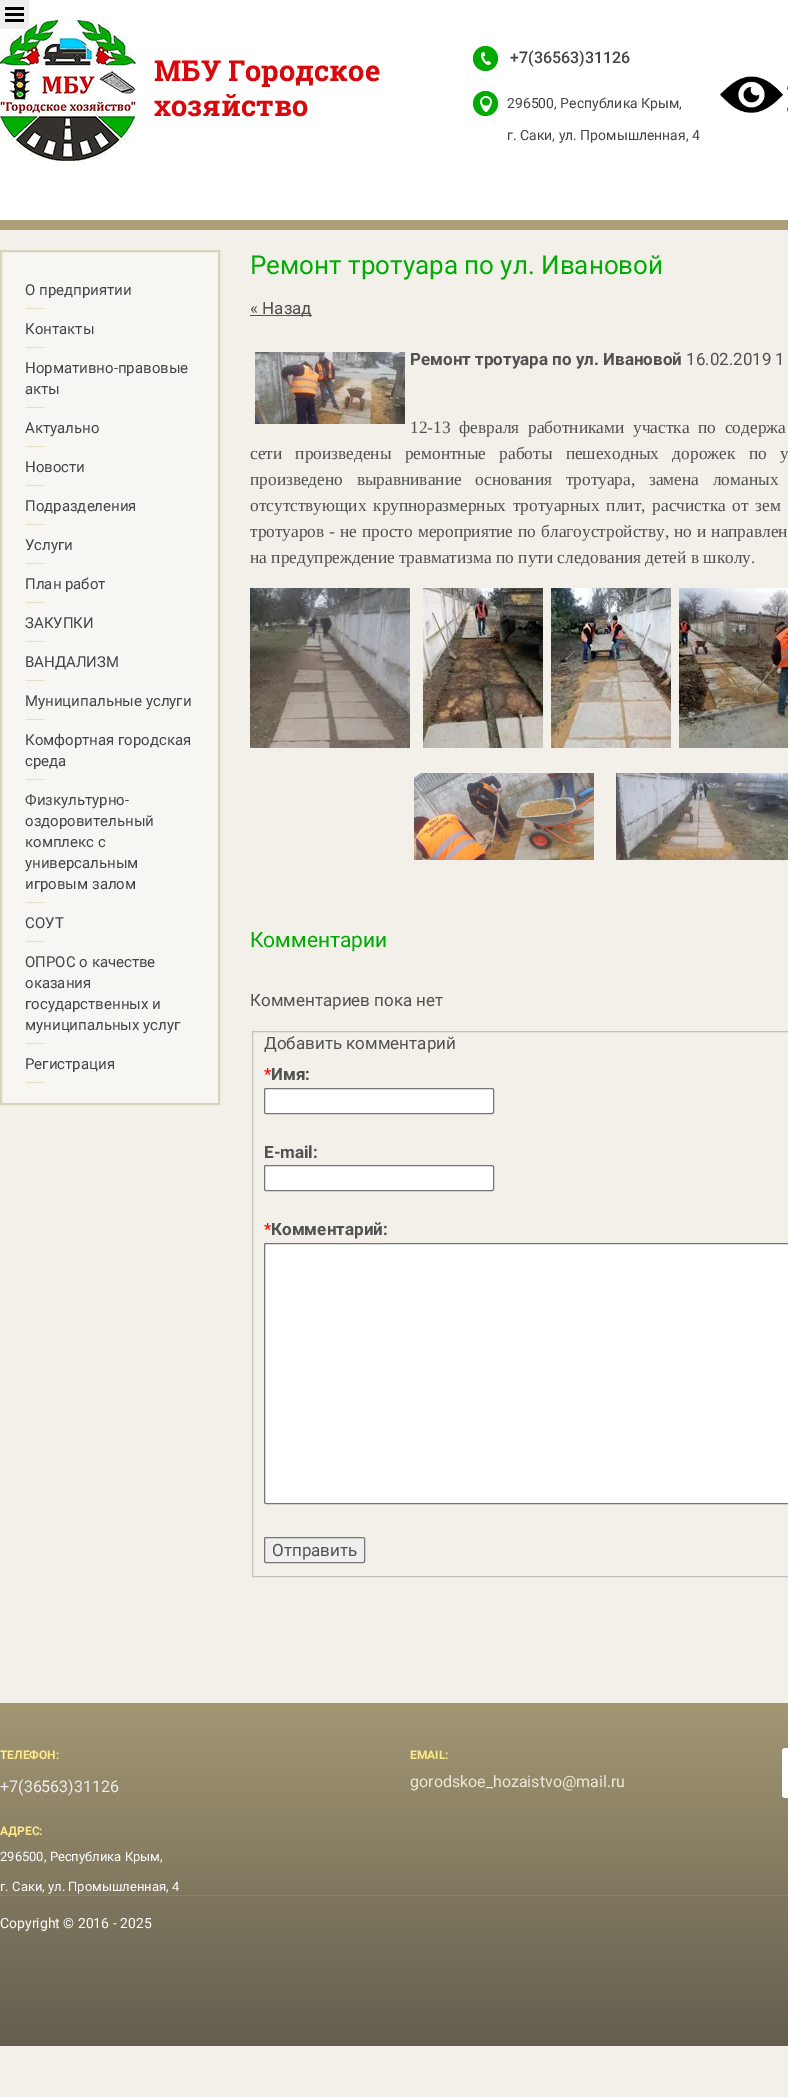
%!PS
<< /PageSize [788 2097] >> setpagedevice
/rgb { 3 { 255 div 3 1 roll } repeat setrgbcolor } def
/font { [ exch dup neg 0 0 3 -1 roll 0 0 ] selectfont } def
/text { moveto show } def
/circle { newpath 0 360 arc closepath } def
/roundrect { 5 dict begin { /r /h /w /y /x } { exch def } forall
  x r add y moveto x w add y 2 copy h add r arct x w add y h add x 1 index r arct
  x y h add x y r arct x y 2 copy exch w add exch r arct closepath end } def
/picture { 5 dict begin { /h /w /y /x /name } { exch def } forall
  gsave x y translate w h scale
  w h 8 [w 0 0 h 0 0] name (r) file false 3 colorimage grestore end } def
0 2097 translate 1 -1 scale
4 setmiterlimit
243 240 233 rgb
0 0 788 2097 rectfill
255 255 255 rgb
0 0 788 220 rectfill
(img_01.rgb) 0 20 136 141 picture
238 238 238 rgb
0 0 29 29 rectfill
0 0 0 rgb
5 7 19 3 rectfill
5 13 19 3 rectfill
5 19 19 3 rectfill
0 171 4 rgb
485.5 58.5 12.5 circle fill
(img_02.rgb) 481 52 10 13 picture
485.5 103.5 12.5 circle fill
(img_03.rgb) 480 96 12 16 picture
(img_04.rgb) 720 76 68 37 picture
173 160 121 rgb
0 220 788 10 rectfill
248 246 242 rgb
1 251 moveto 218 0 rlineto 0 853 rlineto -218 0 rlineto closepath gsave fill grestore
217 210 191 rgb
2 setlinewidth
stroke
233 224 195 rgb
26 308 19 1 rectfill
26 347 19 1 rectfill
26 407 19 1 rectfill
26 446 19 1 rectfill
26 485 19 1 rectfill
26 524 19 1 rectfill
26 563 19 1 rectfill
26 602 19 1 rectfill
26 641 19 1 rectfill
26 680 19 1 rectfill
26 719 19 1 rectfill
26 779 19 1 rectfill
26 902 19 1 rectfill
26 941 19 1 rectfill
26 1043 19 1 rectfill
26 1082 19 1 rectfill
82 82 82 rgb
250 315 62 1 rectfill
(img_05.rgb) 255 352 150 72 picture
(img_06.rgb) 250 588 160 160 picture
(img_07.rgb) 423 588 120 160 picture
(img_08.rgb) 551 588 120 160 picture
(img_09.rgb) 679 588 109 160 picture
(img_10.rgb) 414 773 180 87 picture
(img_11.rgb) 616 773 172 87 picture
192 192 192 rgb
1 setlinewidth
252.5 1031.5 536 545 rectstroke
255 255 255 rgb
264.5 1088.5 229 25 1.5 roundrect gsave fill grestore
118 118 118 rgb
stroke
255 255 255 rgb
264.5 1165.5 229 25 1.5 roundrect gsave fill grestore
118 118 118 rgb
stroke
255 255 255 rgb
266 1243 moveto 522 0 rlineto 0 261 rlineto -522 0 rlineto -1 0 -2 -1 -2 -2 rcurveto 0 -257 rlineto 0 -1 1 -2 2 -2 rcurveto closepath fill
118 118 118 rgb
264.5 1243.5 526 260 1.5 roundrect stroke
239 239 239 rgb
264.5 1537.5 100 25 1.5 roundrect gsave fill grestore
118 118 118 rgb
stroke
gsave 0 1703 moveto 788 0 rlineto 0 343 rlineto -788 0 rlineto closepath clip newpath
<< /ShadingType 2 /ColorSpace /DeviceRGB /Coords [394 1703 394 2046] /Extend [true true] /Function << /FunctionType 2 /Domain [0 1] /C0 [0.639 0.592 0.451] /C1 [0.388 0.369 0.306] /N 1 >> >> shfill grestore
255 255 255 rgb
785 1748 moveto 3 0 rlineto 0 50 rlineto -3 0 rlineto -1.5 0 -3 -1.5 -3 -3 rcurveto 0 -44 rlineto 0 -1.5 1.5 -3 3 -3 rcurveto closepath fill
137 130 111 rgb
0 1895 788 1 rectfill
/RobotoSlab-Bold 29 font
215 9 13 rgb
(МБУ Городское) 154 81 text
(хозяйство) 154 116 text
/Roboto-Medium 16 font
69 69 69 rgb
(+7\(36563\)31126) 510 63 text
/Roboto-Regular 14 font
(296500, Республика Крым,) 507 108 text
(г. Саки, ул. Промышленная, 4) 507 140 text
/Roboto-Regular 15 font
(О предприятии) 25 295 text
(Контакты) 25 334 text
(Нормативно-правовые) 25 373 text
(акты) 25 394 text
(Актуально) 25 433 text
(Новости) 25 472 text
(Подразделения) 25 511 text
(Услуги) 25 550 text
(План работ) 25 589 text
(ЗАКУПКИ) 25 628 text
(ВАНДАЛИЗМ) 25 667 text
(Муниципальные услуги) 25 706 text
(Комфортная городская) 25 745 text
(среда) 25 766 text
(Физкультурно-) 25 805 text
(оздоровительный) 25 826 text
(комплекс с) 25 847 text
(универсальным) 25 868 text
(игровым залом) 25 889 text
(СОУТ) 25 928 text
(ОПРОС о качестве) 25 967 text
(оказания) 25 988 text
(государственных и) 25 1009 text
(муниципальных услуг) 25 1030 text
(Регистрация) 25 1069 text
/Roboto-Regular 26 font
0 171 4 rgb
(Ремонт тротуара по ул. Ивановой) 250 274 text
/Roboto-Regular 17 font
82 82 82 rgb
(« Назад) 250 314 text
/Roboto-Bold 17 font
(Ремонт тротуара по ул. Ивановой) 410 365 text
/Roboto-Regular 17 font
(16.02.2019 1) 686 365 text
/LiberationSerif-Regular 17.3 font
410 433 moveto 4.5 0 32 (12-13 февраля работниками участка по содержа) widthshow
250 459 moveto 9 0 32 (сети произведены ремонтные работы пешеходных дорожек по у) widthshow
250 485 moveto 9.5 0 32 (произведено выравнивание основания тротуара, замена ломаных) widthshow
250 511 moveto 2.5 0 32 (отсутствующих крупноразмерных тротуарных плит, расчистка от зем) widthshow
250 537 moveto 0.75 0 32 (тротуаров - не просто мероприятие по благоустройству, но и направлен) widthshow
(на предупреждение травматизма по пути следования детей в школу.) 250 563 text
/Roboto-Regular 21 font
0 171 4 rgb
(Комментарии) 250 947 text
/Roboto-Regular 17 font
82 82 82 rgb
(Комментариев пока нет) 250 1006 text
(Добавить комментарий) 264 1049 text
255 0 0 rgb
(*) 264 1080 text
/Roboto-Bold 17 font
82 82 82 rgb
(Имя:) 271 1080 text
(E-mail:) 264 1158 text
/Roboto-Regular 17 font
255 0 0 rgb
(*) 264 1235 text
/Roboto-Bold 17 font
82 82 82 rgb
(Комментарий:) 271 1235 text
/Roboto-Regular 17 font
(Отправить) 272 1556 text
/Roboto-Bold 12 font
255 234 138 rgb
(ТЕЛЕФОН:) 0 1759 text
/Roboto-Regular 16 font
237 237 237 rgb
(+7\(36563\)31126) 0 1792 text
/Roboto-Bold 12 font
255 234 138 rgb
(АДРЕС:) 0 1835 text
/Roboto-Regular 13 font
255 255 255 rgb
(296500, Республика Крым,) 0 1861 text
(г. Саки, ул. Промышленная, 4) 0 1891 text
/Roboto-Bold 12 font
255 234 138 rgb
(EMAIL:) 410 1759 text
/Roboto-Regular 16 font
235 232 217 rgb
(gorodskoe_hozaistvo@mail.ru) 410 1787 text
/Roboto-Regular 14 font
255 255 255 rgb
(Copyright © 2016 - 2025) 0 1928 text
showpage
